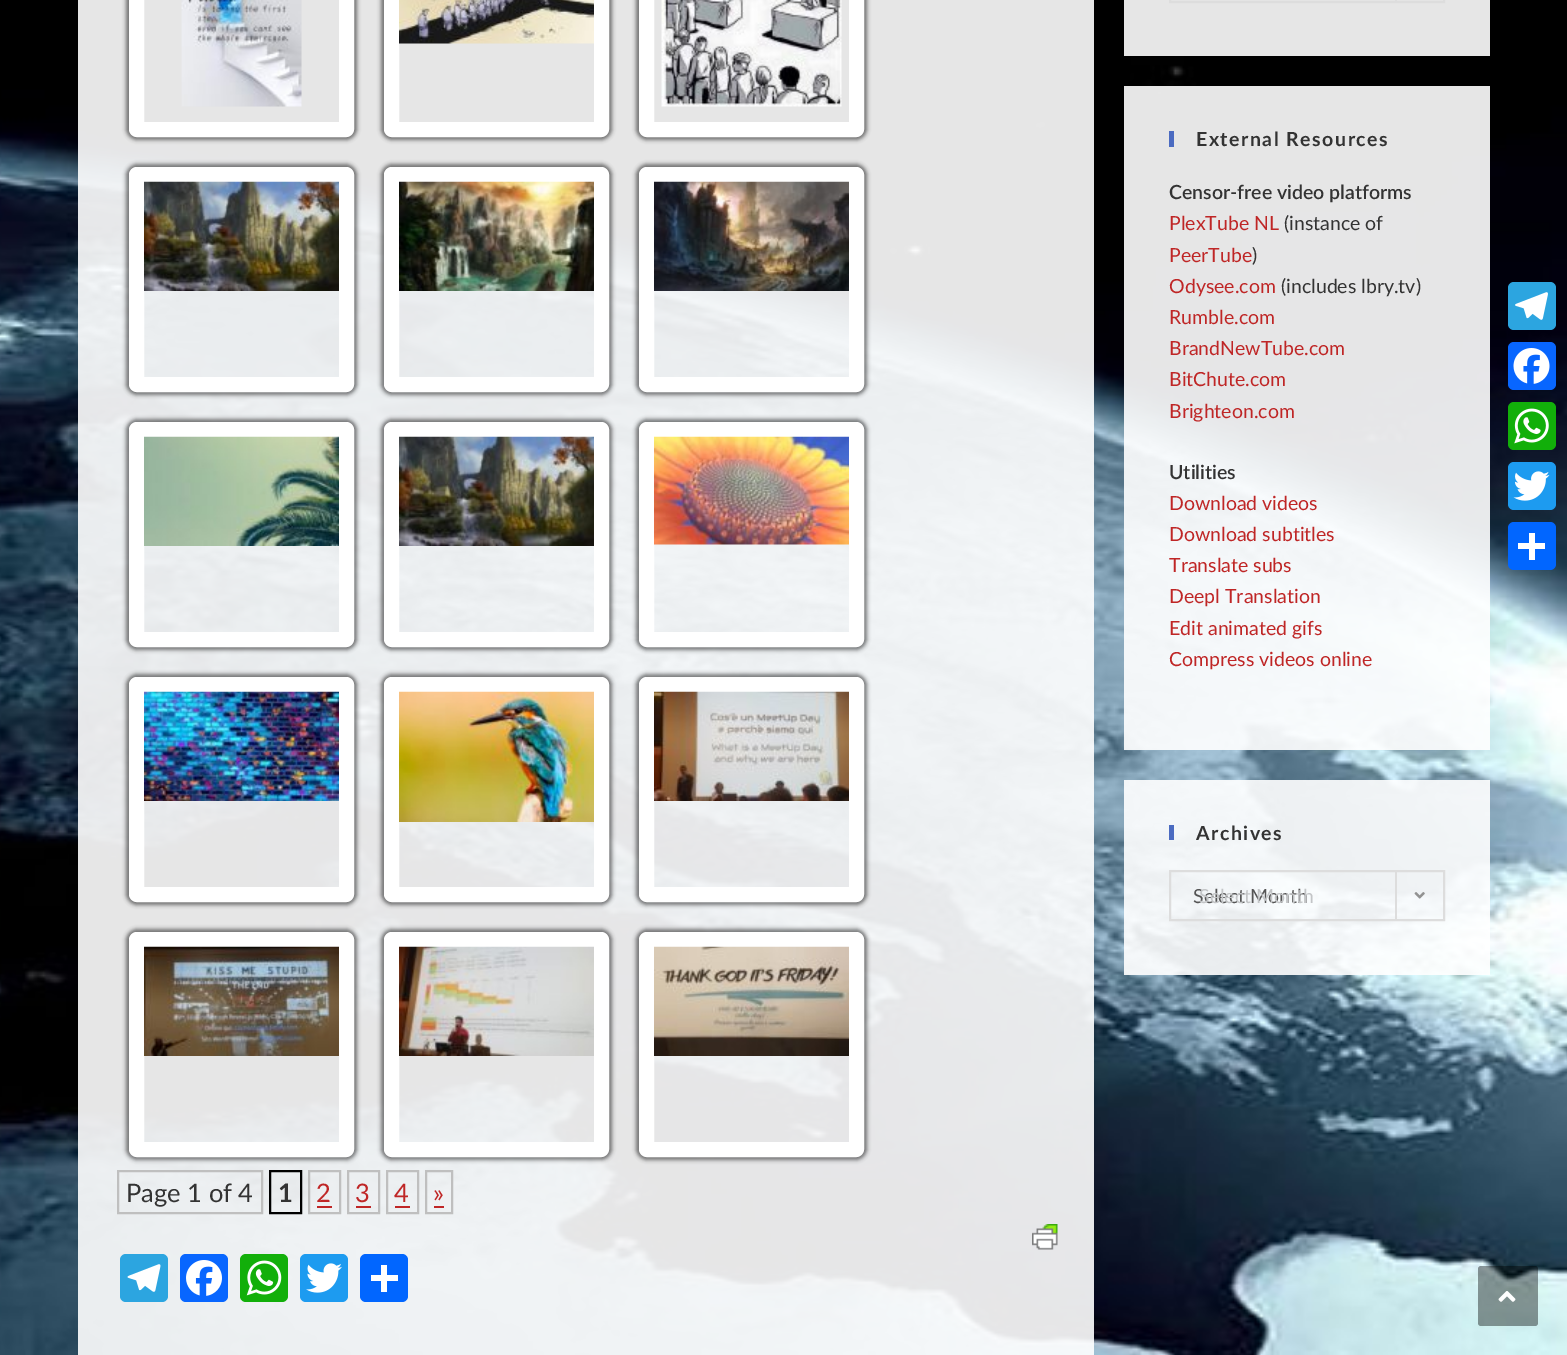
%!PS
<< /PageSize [1567 1355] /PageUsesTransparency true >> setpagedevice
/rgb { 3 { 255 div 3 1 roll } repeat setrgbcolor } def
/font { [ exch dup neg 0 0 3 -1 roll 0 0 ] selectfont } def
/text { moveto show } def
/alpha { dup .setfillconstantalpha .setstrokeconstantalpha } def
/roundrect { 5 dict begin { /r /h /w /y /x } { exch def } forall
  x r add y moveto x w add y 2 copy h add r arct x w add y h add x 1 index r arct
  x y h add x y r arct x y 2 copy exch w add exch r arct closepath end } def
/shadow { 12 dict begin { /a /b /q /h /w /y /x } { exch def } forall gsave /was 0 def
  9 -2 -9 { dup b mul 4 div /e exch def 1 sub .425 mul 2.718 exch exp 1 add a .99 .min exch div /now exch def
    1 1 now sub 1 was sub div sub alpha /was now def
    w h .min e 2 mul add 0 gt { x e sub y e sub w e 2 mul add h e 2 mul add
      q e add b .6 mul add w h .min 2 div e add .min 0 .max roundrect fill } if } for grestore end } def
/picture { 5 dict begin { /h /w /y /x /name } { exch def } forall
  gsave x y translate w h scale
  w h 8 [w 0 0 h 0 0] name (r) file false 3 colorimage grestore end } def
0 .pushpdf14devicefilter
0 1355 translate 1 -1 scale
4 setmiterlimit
255 255 255 rgb
0 0 1567 1355 rectfill
(img_01.rgb) 0 0 1567 1355 picture
230 230 230 rgb
1124 0 366 56 rectfill
221 221 221 rgb
2 setlinewidth
1170 -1 274 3 rectstroke
1395 0 2 1 rectfill
0.9 alpha
255 255 255 rgb
1124 86 366 664 rectfill
1 alpha
75 107 193 rgb
1169 131 5 16 rectfill
0.9 alpha
255 255 255 rgb
1124 780 366 195 rectfill
1 alpha
75 107 193 rgb
1169 825 5 15 rectfill
221 221 221 rgb
1170 871 274 49 rectstroke
1395 872 2 48 rectfill
(img_02.rgb) 1414 892 11 7 picture
0.9 alpha
255 255 255 rgb
78 0 1016 1355 rectfill
gsave
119 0 moveto 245 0 rlineto 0 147 rlineto -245 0 rlineto closepath 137 -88 moveto 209 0 rlineto 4.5 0 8 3.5 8 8 rcurveto 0 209 rlineto 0 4.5 -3.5 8 -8 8 rcurveto -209 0 rlineto -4.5 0 -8 -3.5 -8 -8 rcurveto 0 -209 rlineto 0 -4.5 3.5 -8 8 -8 rcurveto closepath eoclip newpath
1 alpha
0 0 0 rgb
126 -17 231 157 11 2 0.5 shadow
grestore
1 alpha
15 setlinewidth
136.5 -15.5 210 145 0.5 roundrect stroke
(img_03.rgb) 181 0 121 107 picture
gsave
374 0 moveto 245 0 rlineto 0 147 rlineto -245 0 rlineto closepath 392 -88 moveto 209 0 rlineto 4.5 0 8 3.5 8 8 rcurveto 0 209 rlineto 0 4.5 -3.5 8 -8 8 rcurveto -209 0 rlineto -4.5 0 -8 -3.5 -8 -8 rcurveto 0 -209 rlineto 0 -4.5 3.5 -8 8 -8 rcurveto closepath eoclip newpath
0 0 0 rgb
381 -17 231 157 11 2 0.5 shadow
grestore
391.5 -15.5 210 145 0.5 roundrect stroke
(img_04.rgb) 399 0 195 44 picture
gsave
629 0 moveto 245 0 rlineto 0 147 rlineto -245 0 rlineto closepath 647 -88 moveto 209 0 rlineto 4.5 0 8 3.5 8 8 rcurveto 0 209 rlineto 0 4.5 -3.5 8 -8 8 rcurveto -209 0 rlineto -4.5 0 -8 -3.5 -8 -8 rcurveto 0 -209 rlineto 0 -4.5 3.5 -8 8 -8 rcurveto closepath eoclip newpath
0 0 0 rgb
636 -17 231 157 11 2 0.5 shadow
grestore
646.5 -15.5 210 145 0.5 roundrect stroke
(img_05.rgb) 661 0 181 107 picture
gsave
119 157 moveto 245 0 rlineto 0 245 rlineto -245 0 rlineto closepath 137 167 moveto 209 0 rlineto 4.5 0 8 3.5 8 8 rcurveto 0 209 rlineto 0 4.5 -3.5 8 -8 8 rcurveto -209 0 rlineto -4.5 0 -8 -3.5 -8 -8 rcurveto 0 -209 rlineto 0 -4.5 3.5 -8 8 -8 rcurveto closepath eoclip newpath
0 0 0 rgb
126 164 231 231 11 2 0.5 shadow
grestore
136.5 174.5 210 210 0.5 roundrect stroke
(img_06.rgb) 144 181 195 110 picture
gsave
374 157 moveto 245 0 rlineto 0 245 rlineto -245 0 rlineto closepath 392 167 moveto 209 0 rlineto 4.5 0 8 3.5 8 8 rcurveto 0 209 rlineto 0 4.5 -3.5 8 -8 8 rcurveto -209 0 rlineto -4.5 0 -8 -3.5 -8 -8 rcurveto 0 -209 rlineto 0 -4.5 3.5 -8 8 -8 rcurveto closepath eoclip newpath
0 0 0 rgb
381 164 231 231 11 2 0.5 shadow
grestore
391.5 174.5 210 210 0.5 roundrect stroke
(img_07.rgb) 399 181 195 110 picture
gsave
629 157 moveto 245 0 rlineto 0 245 rlineto -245 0 rlineto closepath 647 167 moveto 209 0 rlineto 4.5 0 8 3.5 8 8 rcurveto 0 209 rlineto 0 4.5 -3.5 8 -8 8 rcurveto -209 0 rlineto -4.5 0 -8 -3.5 -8 -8 rcurveto 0 -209 rlineto 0 -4.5 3.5 -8 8 -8 rcurveto closepath eoclip newpath
0 0 0 rgb
636 164 231 231 11 2 0.5 shadow
grestore
646.5 174.5 210 210 0.5 roundrect stroke
(img_08.rgb) 654 181 195 110 picture
gsave
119 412 moveto 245 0 rlineto 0 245 rlineto -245 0 rlineto closepath 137 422 moveto 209 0 rlineto 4.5 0 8 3.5 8 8 rcurveto 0 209 rlineto 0 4.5 -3.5 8 -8 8 rcurveto -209 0 rlineto -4.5 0 -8 -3.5 -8 -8 rcurveto 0 -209 rlineto 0 -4.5 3.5 -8 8 -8 rcurveto closepath eoclip newpath
0 0 0 rgb
126 419 231 231 11 2 0.5 shadow
grestore
136.5 429.5 210 210 0.5 roundrect stroke
(img_09.rgb) 144 436 195 110 picture
gsave
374 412 moveto 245 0 rlineto 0 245 rlineto -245 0 rlineto closepath 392 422 moveto 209 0 rlineto 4.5 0 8 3.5 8 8 rcurveto 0 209 rlineto 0 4.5 -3.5 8 -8 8 rcurveto -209 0 rlineto -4.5 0 -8 -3.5 -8 -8 rcurveto 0 -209 rlineto 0 -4.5 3.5 -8 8 -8 rcurveto closepath eoclip newpath
0 0 0 rgb
381 419 231 231 11 2 0.5 shadow
grestore
391.5 429.5 210 210 0.5 roundrect stroke
(img_10.rgb) 399 436 195 110 picture
gsave
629 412 moveto 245 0 rlineto 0 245 rlineto -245 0 rlineto closepath 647 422 moveto 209 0 rlineto 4.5 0 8 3.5 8 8 rcurveto 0 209 rlineto 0 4.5 -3.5 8 -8 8 rcurveto -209 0 rlineto -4.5 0 -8 -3.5 -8 -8 rcurveto 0 -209 rlineto 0 -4.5 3.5 -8 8 -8 rcurveto closepath eoclip newpath
0 0 0 rgb
636 419 231 231 11 2 0.5 shadow
grestore
646.5 429.5 210 210 0.5 roundrect stroke
(img_11.rgb) 654 436 195 109 picture
gsave
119 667 moveto 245 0 rlineto 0 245 rlineto -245 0 rlineto closepath 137 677 moveto 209 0 rlineto 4.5 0 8 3.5 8 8 rcurveto 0 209 rlineto 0 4.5 -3.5 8 -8 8 rcurveto -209 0 rlineto -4.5 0 -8 -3.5 -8 -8 rcurveto 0 -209 rlineto 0 -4.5 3.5 -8 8 -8 rcurveto closepath eoclip newpath
0 0 0 rgb
126 674 231 231 11 2 0.5 shadow
grestore
136.5 684.5 210 210 0.5 roundrect stroke
(img_12.rgb) 144 691 195 110 picture
gsave
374 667 moveto 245 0 rlineto 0 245 rlineto -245 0 rlineto closepath 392 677 moveto 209 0 rlineto 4.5 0 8 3.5 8 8 rcurveto 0 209 rlineto 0 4.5 -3.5 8 -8 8 rcurveto -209 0 rlineto -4.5 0 -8 -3.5 -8 -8 rcurveto 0 -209 rlineto 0 -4.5 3.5 -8 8 -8 rcurveto closepath eoclip newpath
0 0 0 rgb
381 674 231 231 11 2 0.5 shadow
grestore
391.5 684.5 210 210 0.5 roundrect stroke
(img_13.rgb) 399 691 195 131 picture
gsave
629 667 moveto 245 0 rlineto 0 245 rlineto -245 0 rlineto closepath 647 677 moveto 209 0 rlineto 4.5 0 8 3.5 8 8 rcurveto 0 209 rlineto 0 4.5 -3.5 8 -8 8 rcurveto -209 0 rlineto -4.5 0 -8 -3.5 -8 -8 rcurveto 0 -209 rlineto 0 -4.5 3.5 -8 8 -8 rcurveto closepath eoclip newpath
0 0 0 rgb
636 674 231 231 11 2 0.5 shadow
grestore
646.5 684.5 210 210 0.5 roundrect stroke
(img_14.rgb) 654 691 195 110 picture
gsave
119 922 moveto 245 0 rlineto 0 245 rlineto -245 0 rlineto closepath 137 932 moveto 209 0 rlineto 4.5 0 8 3.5 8 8 rcurveto 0 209 rlineto 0 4.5 -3.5 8 -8 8 rcurveto -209 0 rlineto -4.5 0 -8 -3.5 -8 -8 rcurveto 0 -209 rlineto 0 -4.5 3.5 -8 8 -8 rcurveto closepath eoclip newpath
0 0 0 rgb
126 929 231 231 11 2 0.5 shadow
grestore
136.5 939.5 210 210 0.5 roundrect stroke
(img_15.rgb) 144 946 195 110 picture
gsave
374 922 moveto 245 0 rlineto 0 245 rlineto -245 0 rlineto closepath 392 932 moveto 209 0 rlineto 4.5 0 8 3.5 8 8 rcurveto 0 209 rlineto 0 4.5 -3.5 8 -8 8 rcurveto -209 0 rlineto -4.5 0 -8 -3.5 -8 -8 rcurveto 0 -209 rlineto 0 -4.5 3.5 -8 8 -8 rcurveto closepath eoclip newpath
0 0 0 rgb
381 929 231 231 11 2 0.5 shadow
grestore
391.5 939.5 210 210 0.5 roundrect stroke
(img_16.rgb) 399 946 195 110 picture
gsave
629 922 moveto 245 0 rlineto 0 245 rlineto -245 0 rlineto closepath 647 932 moveto 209 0 rlineto 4.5 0 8 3.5 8 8 rcurveto 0 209 rlineto 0 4.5 -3.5 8 -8 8 rcurveto -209 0 rlineto -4.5 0 -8 -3.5 -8 -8 rcurveto 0 -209 rlineto 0 -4.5 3.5 -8 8 -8 rcurveto closepath eoclip newpath
0 0 0 rgb
636 929 231 231 11 2 0.5 shadow
grestore
646.5 939.5 210 210 0.5 roundrect stroke
(img_17.rgb) 654 946 195 110 picture
191 191 191 rgb
2 setlinewidth
118 1171 144 42 rectstroke
0 0 0 rgb
270 1171 31 42 rectstroke
191 191 191 rgb
309 1171 31 42 rectstroke
191 38 38 rgb
317 1206 15 2 rectfill
191 191 191 rgb
348 1171 31 42 rectstroke
191 38 38 rgb
356 1206 15 2 rectfill
191 191 191 rgb
387 1171 31 42 rectstroke
191 38 38 rgb
395 1206 15 2 rectfill
191 191 191 rgb
426 1171 26 42 rectstroke
191 38 38 rgb
434 1206 10 2 rectfill
(img_18.rgb) 1032 1224 26 26 picture
44 165 224 rgb
120 1254 48 48 6 roundrect fill
(img_19.rgb) 127 1264 34 28 picture
8 102 255 rgb
180 1254 48 48 6 roundrect fill
(img_20.rgb) 186 1260 36 36 picture
18 175 10 rgb
240 1254 48 48 6 roundrect fill
(img_21.rgb) 246 1260 36 36 picture
29 155 240 rgb
300 1254 48 48 6 roundrect fill
(img_22.rgb) 306 1263 36 30 picture
1 102 255 rgb
360 1254 48 48 6 roundrect fill
255 255 255 rgb
381 1265 6 27 rectfill
371 1275 27 6 rectfill
44 165 224 rgb
1508 282 48 48 6 roundrect fill
(img_23.rgb) 1515 292 33 28 picture
8 102 255 rgb
1508 342 48 48 6 roundrect fill
(img_24.rgb) 1513 348 37 36 picture
18 175 10 rgb
1508 402 48 48 6 roundrect fill
(img_25.rgb) 1514 408 35 36 picture
29 155 240 rgb
1508 462 48 48 6 roundrect fill
(img_26.rgb) 1513 471 37 30 picture
1 102 255 rgb
1508 522 48 48 6 roundrect fill
255 255 255 rgb
1529 533 6 27 rectfill
1518 543 27 6 rectfill
0.4 alpha
0 0 0 rgb
1478 1266 60 60 3 roundrect fill
1 alpha
(img_27.rgb) 1498 1291 18 11 picture
/Lato-Bold 19.5 font
51 51 51 rgb
1196 146 moveto 1.5 0 (External Resources) ashow
/Lato-SemiBold 19.5 font
(Censor-free video platforms) 1169 199 text
/Lato-Regular 19.5 font
191 38 38 rgb
(PlexTube NL) 1169 230 text
51 51 51 rgb
(\(instance of) 1284 230 text
191 38 38 rgb
(PeerTube) 1169 262 text
51 51 51 rgb
(\)) 1252 262 text
191 38 38 rgb
(Odysee.com) 1169 293 text
51 51 51 rgb
(\(includes lbry.tv\)) 1281 293 text
191 38 38 rgb
(Rumble.com) 1169 324 text
(BrandNewTube.com) 1169 355 text
(BitChute.com) 1169 386 text
(Brighteon.com) 1169 418 text
/Lato-SemiBold 19.5 font
51 51 51 rgb
(Utilities) 1169 479 text
/Lato-Regular 19.5 font
191 38 38 rgb
(Download videos) 1169 510 text
(Download subtitles) 1169 541 text
(Translate subs) 1169 572 text
(Deepl Translation) 1169 603 text
(Edit animated gifs) 1169 635 text
(Compress videos online) 1169 666 text
/Lato-Bold 19.5 font
51 51 51 rgb
1196 840 moveto 1.5 0 (Archives) ashow
/Lato-Regular 19.5 font
85 85 85 rgb
(Select Month) 1193 903 text
195 197 199 rgb
(Select Month) 1199 903 text
/Lato-Regular 25.5 font
51 51 51 rgb
(Page 1 of 4) 126 1202 text
/Lato-Bold 25.5 font
(1) 278 1202 text
/Lato-Regular 25.5 font
191 38 38 rgb
(2) 316 1202 text
(3) 355 1202 text
(4) 394 1202 text
(») 433 1202 text
.poppdf14devicefilter showpage
